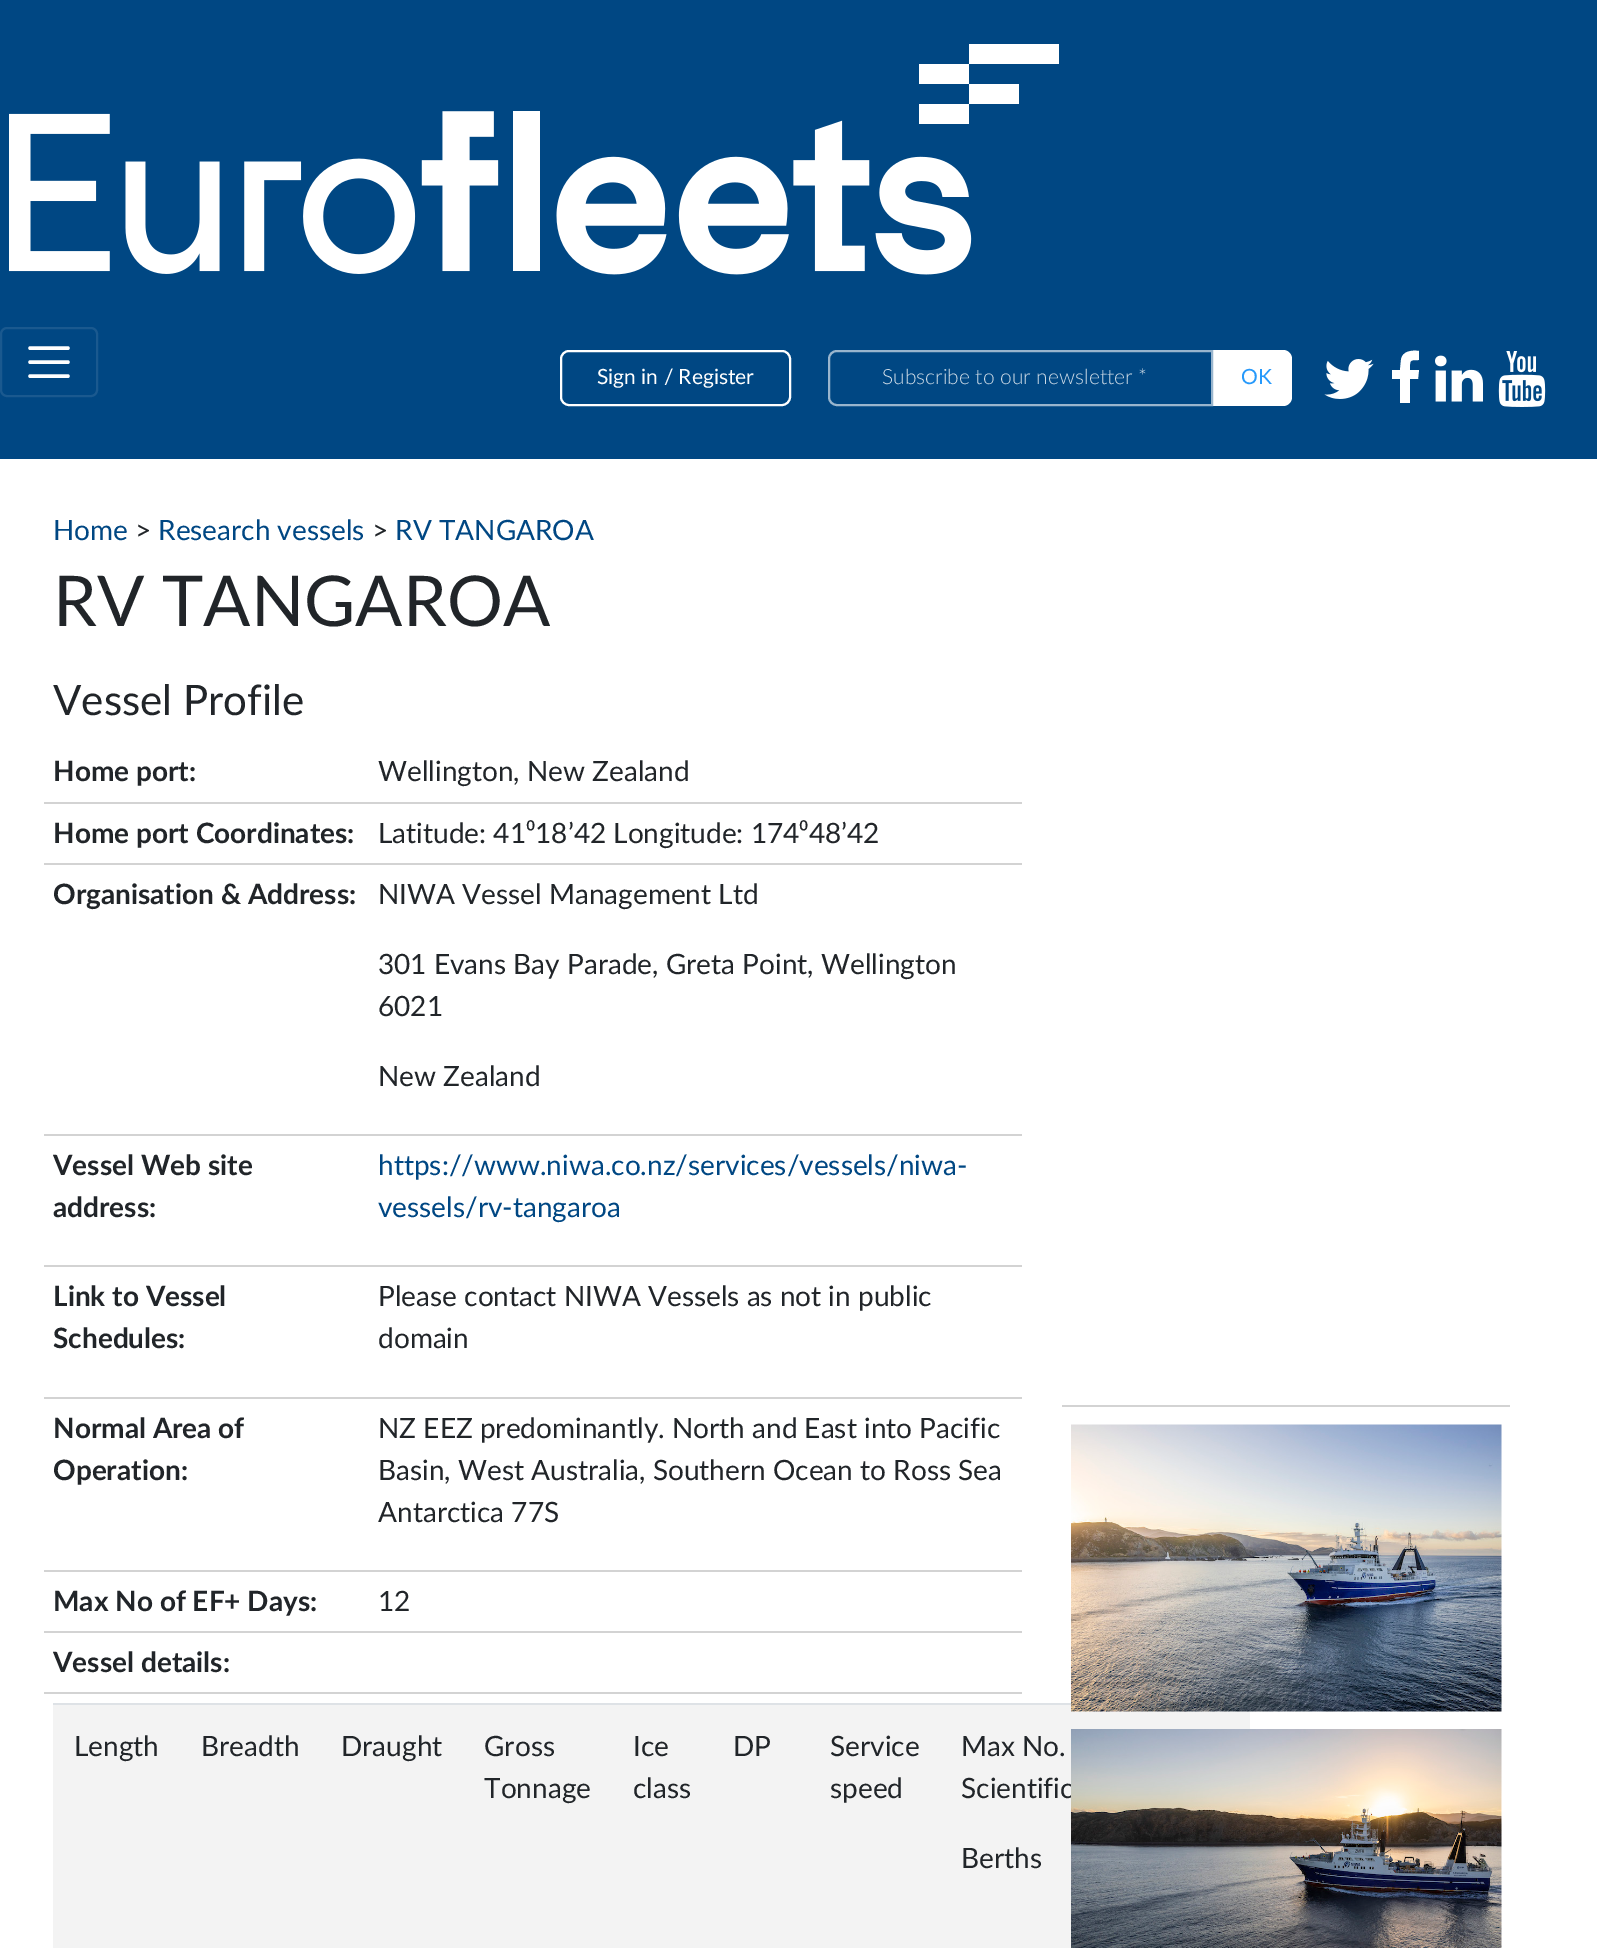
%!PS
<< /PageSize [1597 1948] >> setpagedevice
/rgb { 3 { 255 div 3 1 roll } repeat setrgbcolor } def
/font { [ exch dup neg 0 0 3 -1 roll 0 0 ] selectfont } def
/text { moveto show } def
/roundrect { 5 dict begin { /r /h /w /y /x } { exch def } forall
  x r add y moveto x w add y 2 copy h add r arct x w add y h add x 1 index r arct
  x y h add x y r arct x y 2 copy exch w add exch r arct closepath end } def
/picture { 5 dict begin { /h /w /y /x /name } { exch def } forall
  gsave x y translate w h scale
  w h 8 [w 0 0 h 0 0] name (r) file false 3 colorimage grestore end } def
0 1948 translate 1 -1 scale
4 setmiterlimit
255 255 255 rgb
0 0 1597 1948 rectfill
0 71 131 rgb
0 0 1597 459 rectfill
(img_01.rgb) 9 44 1050 231 picture
26 89 143 rgb
2 setlinewidth
1 328 96 68 6 roundrect stroke
255 255 255 rgb
3.5 setlinewidth
1 setlinecap
30 348 moveto 38 0 rlineto 30 362 moveto 38 0 rlineto 30 376 moveto 38 0 rlineto stroke
2 setlinewidth
0 setlinecap
561 351 229 54 8 roundrect stroke
1204 350 moveto 79 0 rlineto 5 0 9 4 9 9 rcurveto 0 38 rlineto 0 5 -4 9 -9 9 rcurveto -79 0 rlineto closepath fill
0 71 131 rgb
837 351 moveto 375 0 rlineto 0 54 rlineto -375 0 rlineto -4.5 0 -8 -3.5 -8 -8 rcurveto 0 -38 rlineto 0 -4.5 3.5 -8 8 -8 rcurveto closepath gsave fill grestore
153 181 205 rgb
stroke
(img_02.rgb) 1324 359 50 40 picture
255 255 255 rgb
1419 351 moveto 0 9 rlineto -10 0 -9 0 -9 10 rcurveto 9 0 rlineto -1 9 rlineto -8 0 rlineto 0 24 rlineto -10 0 rlineto 0 -24 rlineto -8 0 rlineto 0 -9 rlineto 8 0 rlineto 1 -10 rlineto 1 -9 11 -10 18 -9 rcurveto closepath fill
(img_03.rgb) 1435 355 48 47 picture
(img_04.rgb) 1498 351 48 56 picture
211 211 211 rgb
44 802 978 2 rectfill
44 863 978 2 rectfill
44 1134 978 2 rectfill
44 1265 978 2 rectfill
44 1397 978 2 rectfill
44 1570 978 2 rectfill
44 1631 978 2 rectfill
44 1692 978 2 rectfill
243 243 243 rgb
53 1705 1197 243 rectfill
222 226 230 rgb
53 1703 1018 2 rectfill
211 211 211 rgb
1062 1405 448 2 rectfill
(img_05.rgb) 1071 1424 431 288 picture
/Lato-Regular 21 font
255 255 255 rgb
(Sign in / Register) 597 384 text
/Lato-Light 21 font
204 218 230 rgb
(Subscribe to our newsletter *) 882 384 text
/Lato-Regular 21 font
38 153 251 rgb
(OK) 1241 384 text
/Lato-Regular 28 font
0 71 131 rgb
(Home) 53 540 text
33 37 41 rgb
(>) 135 540 text
0 71 131 rgb
(Research vessels) 158 540 text
33 37 41 rgb
(>) 372 540 text
0 71 131 rgb
(RV TANGAROA) 395 540 text
/Lato-Regular 70 font
33 37 41 rgb
(RV TANGAROA) 53 626 text
/Lato-Regular 42 font
(Vessel Profile) 53 715 text
/Lato-Bold 28 font
(Home port:) 53 781 text
/Lato-Regular 28 font
(Wellington, New Zealand) 378 781 text
/Lato-Bold 28 font
(Home port Coordinates:) 53 843 text
/Lato-Regular 28 font
(Latitude: 41⁰18’42 Longitude: 174⁰48’42) 378 843 text
/Lato-Bold 28 font
(Organisation & Address:) 53 904 text
/Lato-Regular 28 font
(NIWA Vessel Management Ltd) 378 904 text
(301 Evans Bay Parade, Greta Point, Wellington) 378 974 text
(6021) 378 1016 text
(New Zealand) 378 1086 text
/Lato-Bold 28 font
(Vessel Web site) 53 1175 text
(address:) 53 1217 text
/Lato-Regular 28 font
0 71 131 rgb
(https://www.niwa.co.nz/services/vessels/niwa-) 378 1175 text
(vessels/rv-tangaroa) 378 1217 text
/Lato-Bold 28 font
33 37 41 rgb
(Link to Vessel) 53 1306 text
(Schedules:) 53 1348 text
/Lato-Regular 28 font
(Please contact NIWA Vessels as not in public) 378 1306 text
(domain) 378 1348 text
/Lato-Bold 28 font
(Normal Area of) 53 1438 text
(Operation:) 53 1480 text
/Lato-Regular 28 font
(NZ EEZ predominantly. North and East into Pacific) 378 1438 text
(Basin, West Australia, Southern Ocean to Ross Sea) 378 1480 text
(Antarctica 77S) 378 1522 text
/Lato-Bold 28 font
(Max No of EF+ Days:) 53 1611 text
/Lato-Regular 28 font
(12) 378 1611 text
/Lato-Bold 28 font
(Vessel details:) 53 1672 text
/Lato-Regular 28 font
(Length) 74 1756 text
(Breadth) 201 1756 text
(Draught) 341 1756 text
(Gross) 484 1756 text
(Tonnage) 484 1798 text
(Ice) 633 1756 text
(class) 633 1798 text
(DP) 733 1756 text
(Service) 830 1756 text
(speed) 830 1798 text
(Max No.) 961 1756 text
(Scientific) 961 1798 text
(Berths) 961 1868 text
(img_06.rgb) 1071 1729 431 219 picture
showpage
